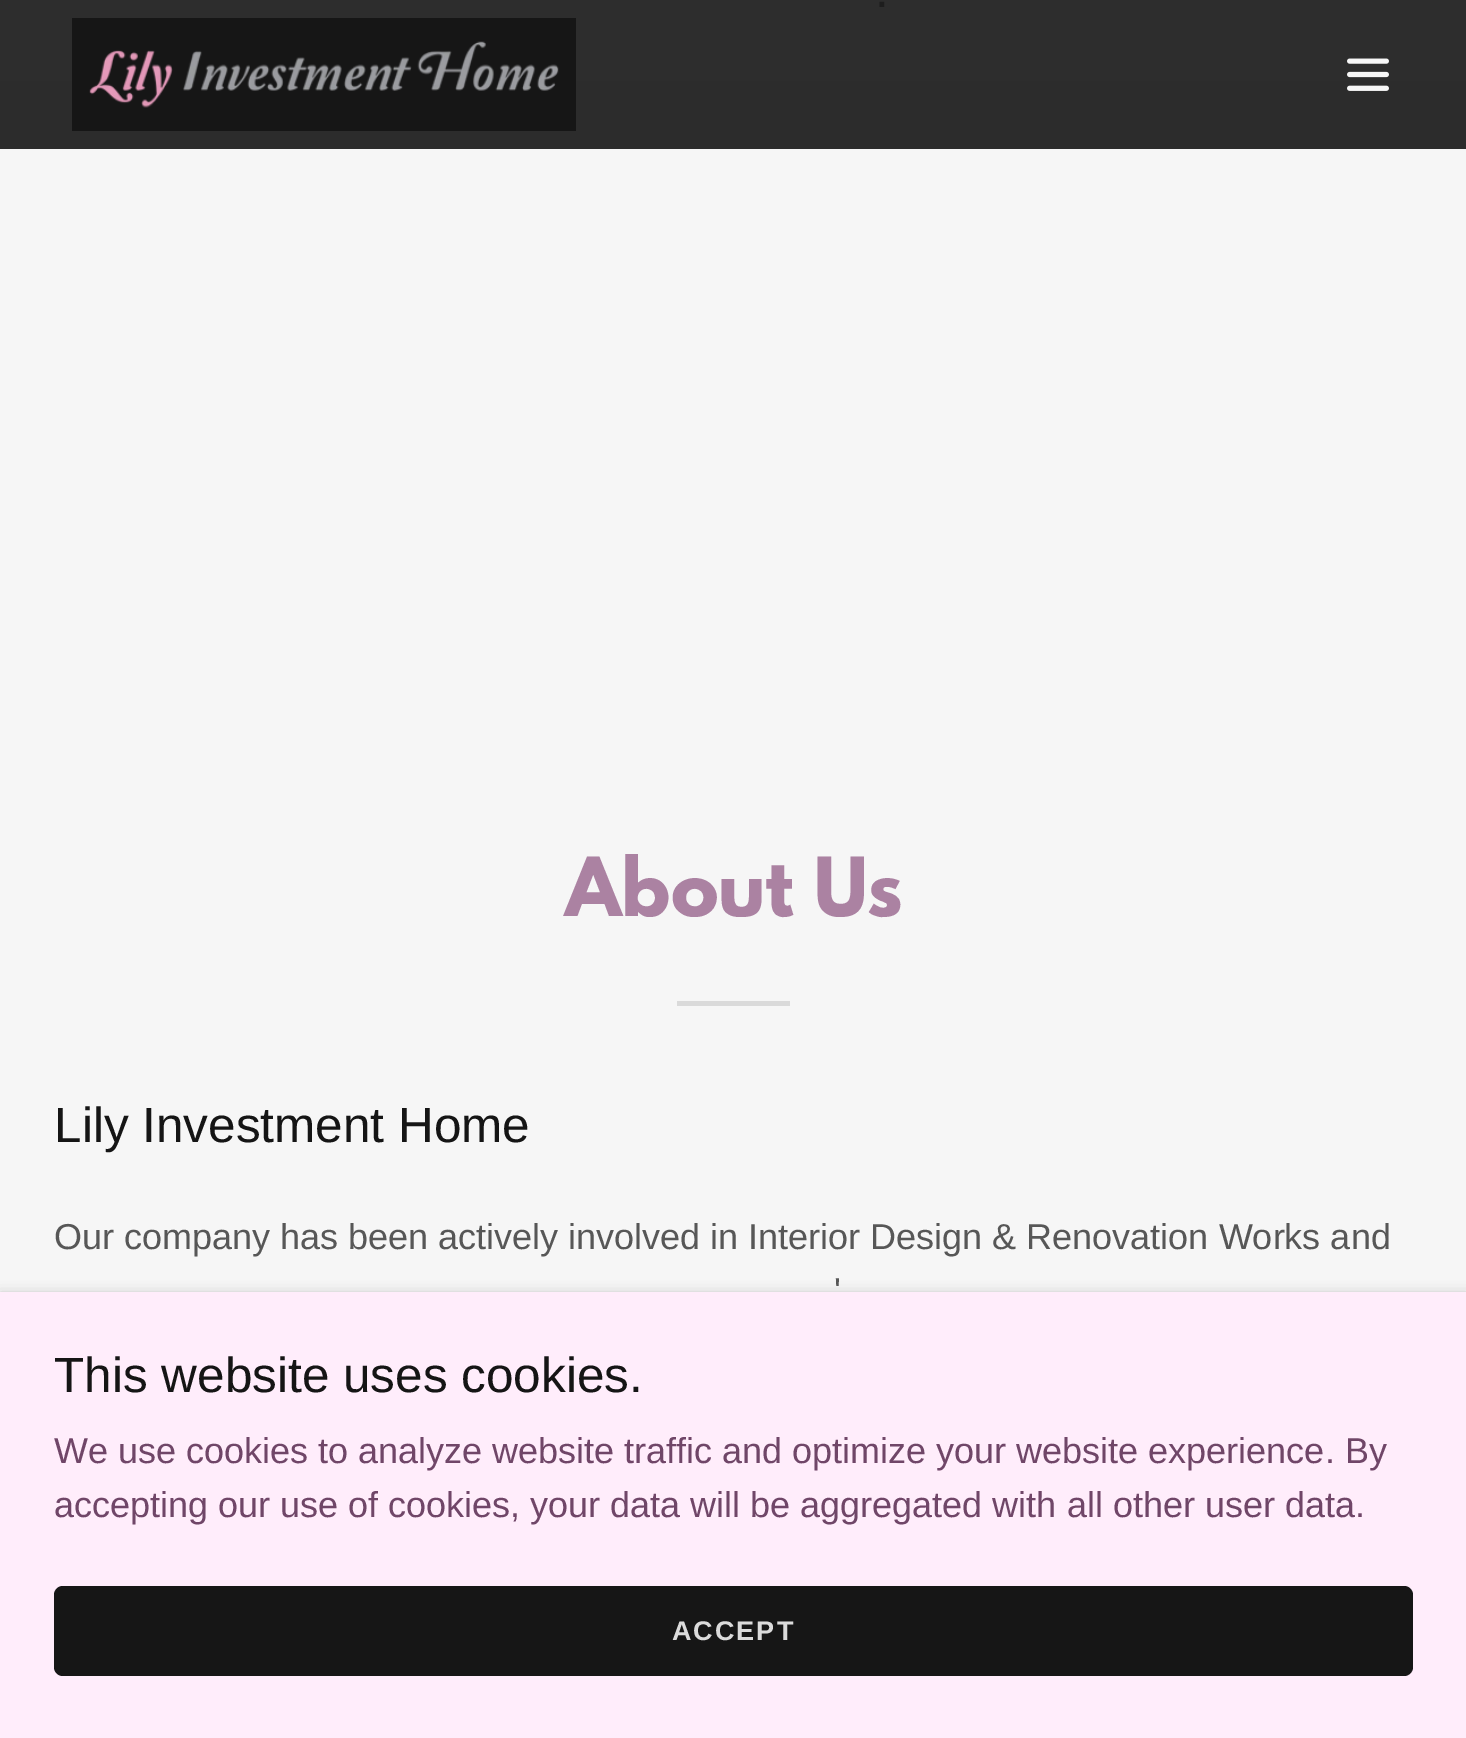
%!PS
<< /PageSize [1466 1738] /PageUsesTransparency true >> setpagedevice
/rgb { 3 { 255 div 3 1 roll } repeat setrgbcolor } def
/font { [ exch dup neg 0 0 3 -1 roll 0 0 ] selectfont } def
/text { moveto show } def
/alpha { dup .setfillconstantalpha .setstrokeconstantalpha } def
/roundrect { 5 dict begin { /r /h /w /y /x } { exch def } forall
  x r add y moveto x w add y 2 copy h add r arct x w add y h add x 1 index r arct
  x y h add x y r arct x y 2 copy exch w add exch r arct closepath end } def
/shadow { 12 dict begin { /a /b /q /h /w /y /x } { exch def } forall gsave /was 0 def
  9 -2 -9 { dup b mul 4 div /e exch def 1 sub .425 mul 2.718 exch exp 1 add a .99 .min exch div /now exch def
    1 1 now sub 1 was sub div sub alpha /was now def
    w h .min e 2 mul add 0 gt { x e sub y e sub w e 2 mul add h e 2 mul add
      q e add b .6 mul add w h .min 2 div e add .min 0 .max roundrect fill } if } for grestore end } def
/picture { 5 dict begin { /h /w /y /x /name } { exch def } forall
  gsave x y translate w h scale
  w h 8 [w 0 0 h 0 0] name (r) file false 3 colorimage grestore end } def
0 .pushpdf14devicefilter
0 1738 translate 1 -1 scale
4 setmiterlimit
246 246 246 rgb
0 0 1466 1738 rectfill
45 45 45 rgb
0 0 1466 81 rectfill
44 44 44 rgb
0 81 1466 68 rectfill
22 22 22 rgb
72 18 504 113 rectfill
(img_01.rgb) 89 41 470 67 picture
(img_02.rgb) 1347 58 42 33 picture
218 218 218 rgb
677 1001 113 5 rectfill
0 0 0 rgb
0 1296 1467 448 0 7 0.3 shadow
255 237 251 rgb
0 1292 1466 446 rectfill
22 22 22 rgb
54 1586 1359 90 9 roundrect fill
/LiberationSans-Regular 49.5 font
29 29 29 rgb
(.) 875 7 text
/LeagueSpartan-Bold 72 font
171 130 162 rgb
(About Us) 565 916 text
/LiberationSans-Regular 49.5 font
21 21 21 rgb
(Lily Investment Home) 54 1142 text
/LiberationSans-Regular 36 font
87 87 87 rgb
(Our company has been actively involved in Interior Design & Renovation Works and) 54 1249 text
(') 834 1303 text
/LiberationSans-Regular 49.5 font
21 21 21 rgb
(This website uses cookies.) 54 1392 text
/LiberationSans-Regular 36 font
112 70 104 rgb
(We use cookies to analyze website traffic and optimize your website experience. By) 54 1463 text
(accepting our use of cookies, your data will be aggregated with all other user data.) 54 1517 text
/LiberationSans-Bold 27 font
219 219 219 rgb
672 1640 moveto 2 0 (ACCEPT) ashow
.poppdf14devicefilter showpage
